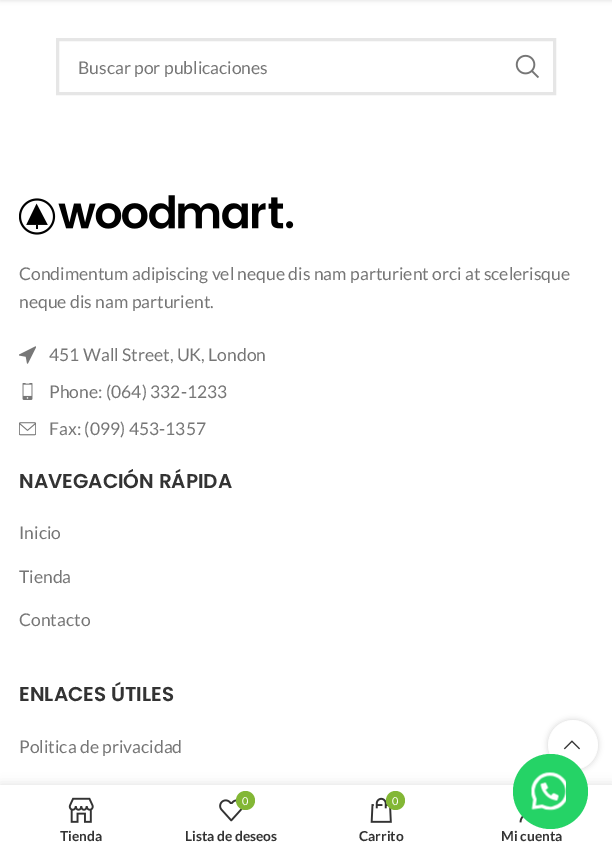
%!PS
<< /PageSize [612 853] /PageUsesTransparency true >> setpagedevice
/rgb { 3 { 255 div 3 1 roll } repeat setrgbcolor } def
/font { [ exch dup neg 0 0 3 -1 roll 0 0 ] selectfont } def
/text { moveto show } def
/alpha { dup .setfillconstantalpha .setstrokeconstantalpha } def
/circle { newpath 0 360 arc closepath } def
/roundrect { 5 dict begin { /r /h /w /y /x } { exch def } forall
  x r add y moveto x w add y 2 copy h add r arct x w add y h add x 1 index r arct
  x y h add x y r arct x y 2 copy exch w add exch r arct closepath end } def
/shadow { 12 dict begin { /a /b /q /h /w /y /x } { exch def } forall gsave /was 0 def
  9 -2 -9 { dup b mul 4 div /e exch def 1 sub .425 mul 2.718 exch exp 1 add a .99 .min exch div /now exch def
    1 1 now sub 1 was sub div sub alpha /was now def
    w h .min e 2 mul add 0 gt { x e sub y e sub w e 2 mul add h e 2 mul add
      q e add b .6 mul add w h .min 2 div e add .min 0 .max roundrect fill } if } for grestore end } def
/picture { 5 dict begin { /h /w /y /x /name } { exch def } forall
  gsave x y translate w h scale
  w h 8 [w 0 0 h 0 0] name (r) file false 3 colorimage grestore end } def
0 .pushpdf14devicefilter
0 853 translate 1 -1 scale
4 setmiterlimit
255 255 255 rgb
0 0 612 853 rectfill
0 0 0 rgb
0 -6 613 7 0 2 0.1 shadow
230 230 230 rgb
3 setlinewidth
57.5 39.5 497 54 rectstroke
(img_01.rgb) 515 54 24 25 picture
(img_02.rgb) 19 195 275 40 picture
(img_03.rgb) 19 346 17 18 picture
(img_04.rgb) 22 383 11 17 picture
(img_05.rgb) 19 422 17 14 picture
gsave
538 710 moveto 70 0 rlineto 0 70 rlineto -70 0 rlineto closepath 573 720 moveto 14 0 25 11 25 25 rcurveto 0 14 -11 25 -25 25 rcurveto -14 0 -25 -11 -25 -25 rcurveto 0 -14 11 -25 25 -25 rcurveto closepath eoclip newpath
0 0 0 rgb
548 720 50 50 25 3 0.17 shadow
grestore
0.9 alpha
255 255 255 rgb
573 745 25 circle fill
1 alpha
(img_06.rgb) 563 740 17 10 picture
0 0 0 rgb
0 785 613 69 0 5.5 0.12 shadow
255 255 255 rgb
0 785 612 68 rectfill
(img_11.rgb) 519 815 5 8 picture
37 211 102 rgb
550.5 791.5 37.5 circle fill
(img_07.rgb) 531 772 35 39 picture
(img_08.rgb) 68 797 26 26 picture
(img_09.rgb) 219 799 24 23 picture
131 183 53 rgb
245.5 800.5 9.5 circle fill
(img_10.rgb) 370 797 22 26 picture
395.5 800.5 9.5 circle fill
/Lato-Regular 17.5 font
118 118 118 rgb
(Buscar por publicaciones) 78 74 text
(Condimentum adipiscing vel neque dis nam parturient orci at scelerisque) 19 280 text
(neque dis nam parturient.) 19 308 text
(451 Wall Street, UK, London) 49 361 text
(Phone: \(064\) 332-1233) 49 398 text
(Fax: \(099\) 453-1357) 49 435 text
/Poppins-SemiBold 20 font
51 51 51 rgb
(NAVEGACIÓN RÁPIDA) 19 488 text
/Lato-Regular 17.5 font
118 118 118 rgb
(Inicio) 19 539 text
(Tienda) 19 583 text
(Contacto) 19 626 text
/Poppins-SemiBold 20 font
51 51 51 rgb
(ENLACES ÚTILES) 19 701 text
/Lato-Regular 17.5 font
118 118 118 rgb
(Politica de privacidad) 19 753 text
/Lato-Bold 13.75 font
51 51 51 rgb
(Tienda) 60 841 text
/Lato-Regular 11 font
255 255 255 rgb
(0) 242 805 text
/Lato-Bold 13.75 font
51 51 51 rgb
(Lista de deseos) 185 841 text
/Lato-Regular 11 font
255 255 255 rgb
(0) 392 805 text
/Lato-Bold 13.75 font
51 51 51 rgb
(Carrito) 359 841 text
(Mi cuenta) 501 841 text
.poppdf14devicefilter showpage
